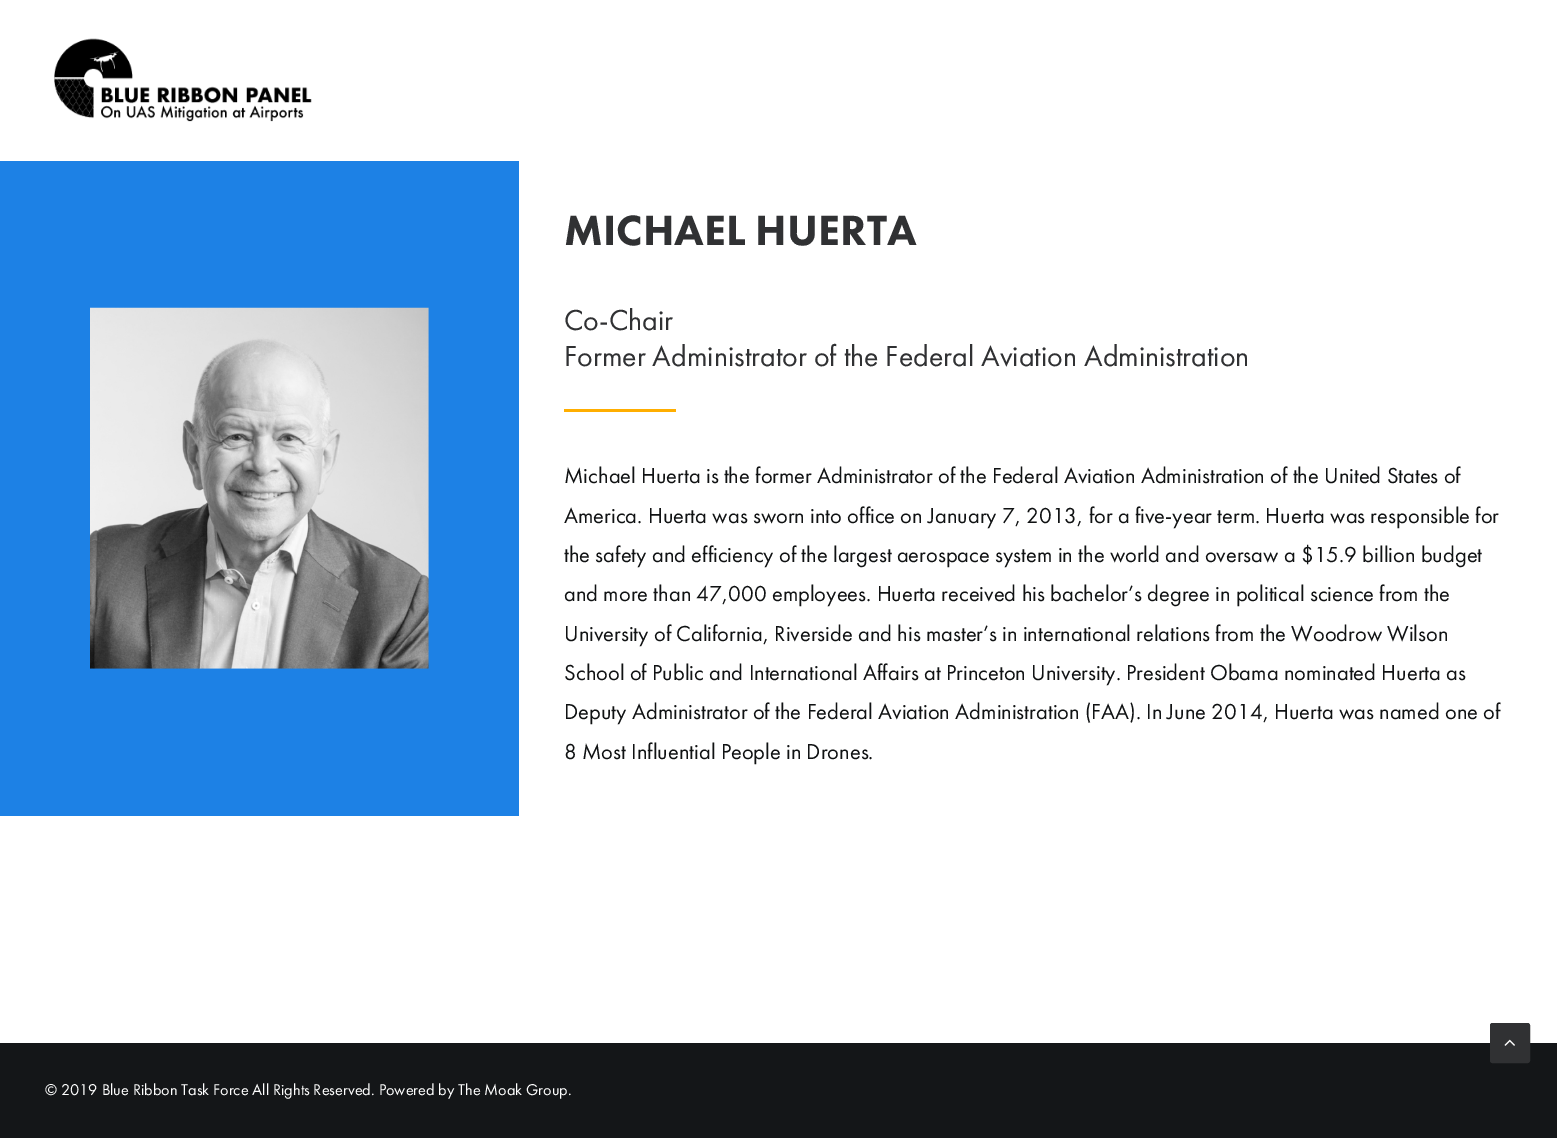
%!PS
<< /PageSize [1557 1138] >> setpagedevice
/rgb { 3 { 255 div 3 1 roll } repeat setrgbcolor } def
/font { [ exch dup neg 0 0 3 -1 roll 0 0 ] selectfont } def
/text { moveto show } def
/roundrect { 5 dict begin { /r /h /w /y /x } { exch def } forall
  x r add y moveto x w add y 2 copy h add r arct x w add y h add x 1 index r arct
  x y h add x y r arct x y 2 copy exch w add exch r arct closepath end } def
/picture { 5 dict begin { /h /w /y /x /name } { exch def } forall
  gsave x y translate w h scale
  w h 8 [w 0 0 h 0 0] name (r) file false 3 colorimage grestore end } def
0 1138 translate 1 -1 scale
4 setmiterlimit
20 22 24 rgb
0 0 1557 1138 rectfill
255 255 255 rgb
0 0 1557 1043 rectfill
(img_01.rgb) 54 38 258 84 picture
29 129 229 rgb
0 161 519 655 rectfill
(img_02.rgb) 90 307 339 362 picture
255 174 0 rgb
564 409 112 3 rectfill
48 49 51 rgb
1490.5 1023.5 39 39 2 roundrect gsave fill grestore
stroke
(img_03.rgb) 1504 1039 11 7 picture
/FuturaPT-Black 43.75 font
(MICHAEL HUERTA) 564 245 text
/FuturaPT-Regular 30 font
(Co-Chair) 564 330 text
(Former Administrator of the Federal Aviation Administration) 564 366 text
/FuturaPT-Regular 22.5 font
16 18 19 rgb
(Michael Huerta is the former Administrator of the Federal Aviation Administration of the United States of) 564 483 text
(America. Huerta was sworn into office on January 7, 2013, for a five-year term. Huerta was responsible for) 564 523 text
(the safety and efficiency of the largest aerospace system in the world and oversaw a $15.9 billion budget) 564 562 text
(and more than 47,000 employees. Huerta received his bachelor’s degree in political science from the) 564 601 text
(University of California, Riverside and his master’s in international relations from the Woodrow Wilson) 564 641 text
(School of Public and International Affairs at Princeton University. President Obama nominated Huerta as) 564 680 text
(Deputy Administrator of the Federal Aviation Administration \(FAA\). In June 2014, Huerta was named one of) 564 719 text
(8 Most Influential People in Drones.) 564 759 text
/FuturaPT-Regular 16.25 font
255 255 255 rgb
(© 2019 Blue Ribbon Task Force All Rights Reserved. Powered by The Moak Group.) 45 1095 text
showpage
